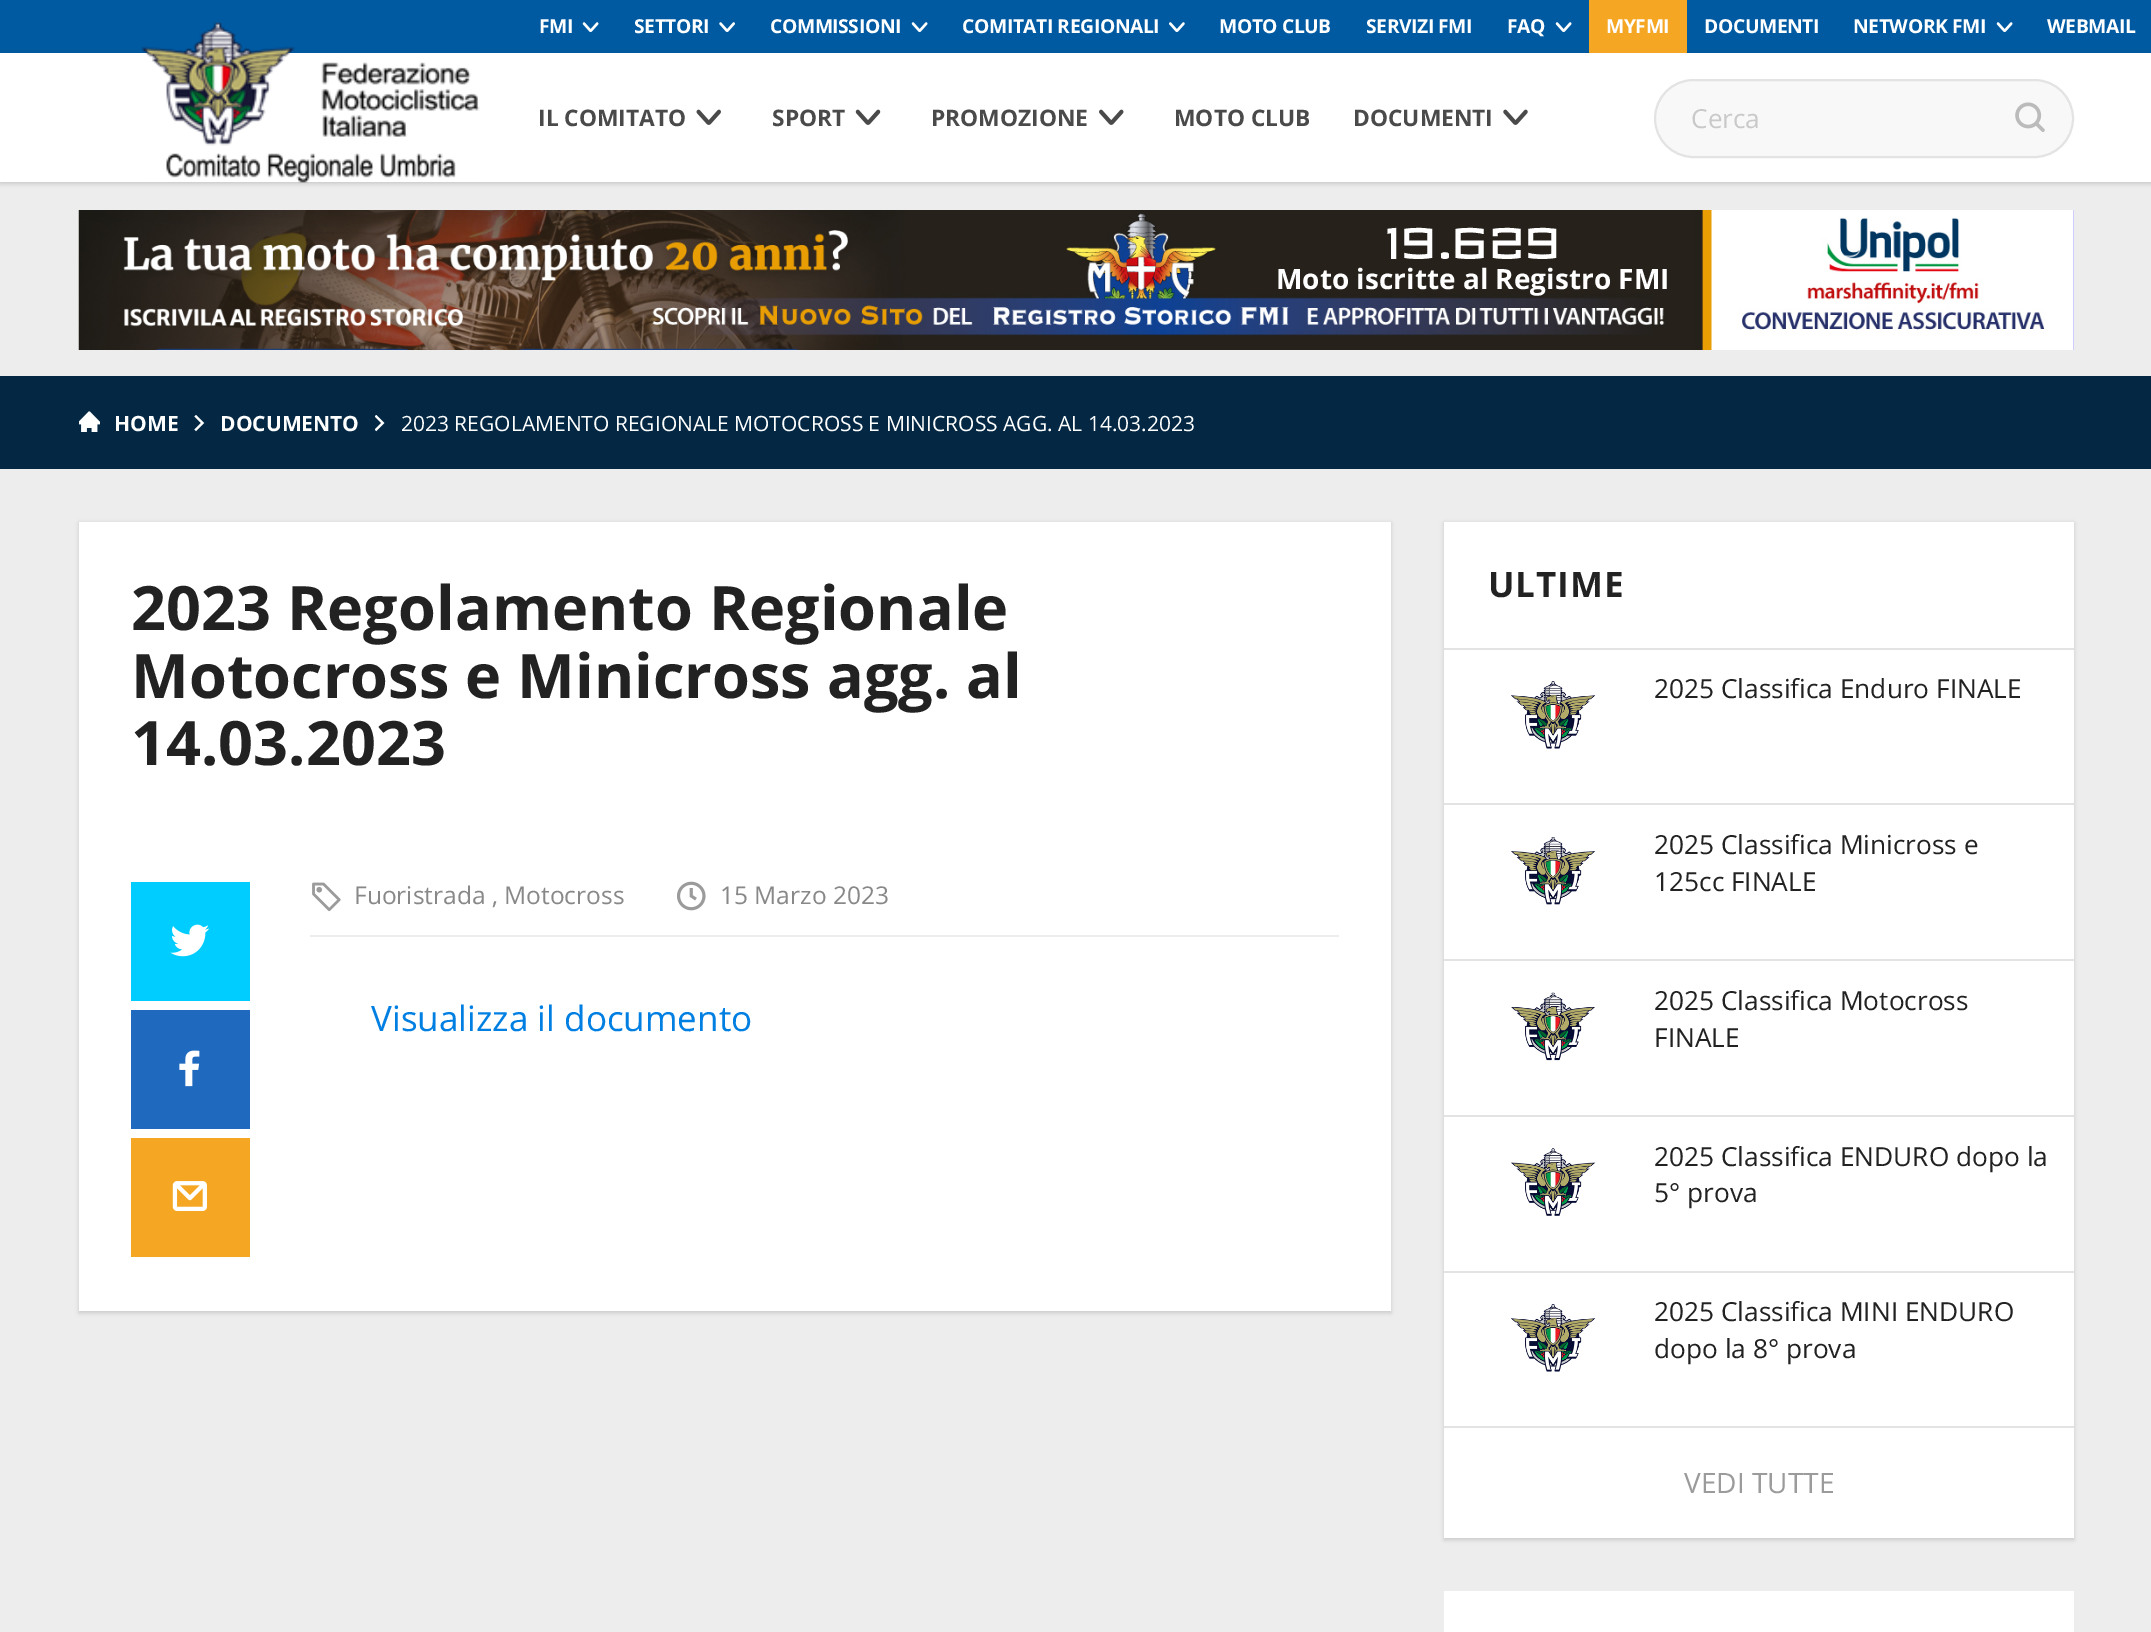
%!PS
<< /PageSize [2151 1632] /PageUsesTransparency true >> setpagedevice
/rgb { 3 { 255 div 3 1 roll } repeat setrgbcolor } def
/font { [ exch dup neg 0 0 3 -1 roll 0 0 ] selectfont } def
/text { moveto show } def
/alpha { dup .setfillconstantalpha .setstrokeconstantalpha } def
/roundrect { 5 dict begin { /r /h /w /y /x } { exch def } forall
  x r add y moveto x w add y 2 copy h add r arct x w add y h add x 1 index r arct
  x y h add x y r arct x y 2 copy exch w add exch r arct closepath end } def
/shadow { 12 dict begin { /a /b /q /h /w /y /x } { exch def } forall gsave /was 0 def
  9 -2 -9 { dup b mul 4 div /e exch def 1 sub .425 mul 2.718 exch exp 1 add a .99 .min exch div /now exch def
    1 1 now sub 1 was sub div sub alpha /was now def
    w h .min e 2 mul add 0 gt { x e sub y e sub w e 2 mul add h e 2 mul add
      q e add b .6 mul add w h .min 2 div e add .min 0 .max roundrect fill } if } for grestore end } def
/picture { 5 dict begin { /h /w /y /x /name } { exch def } forall
  gsave x y translate w h scale
  w h 8 [w 0 0 h 0 0] name (r) file false 3 colorimage grestore end } def
0 .pushpdf14devicefilter
0 1632 translate 1 -1 scale
4 setmiterlimit
237 237 237 rgb
0 0 2151 1632 rectfill
0 90 161 rgb
0 0 2151 53 rectfill
(img_01.rgb) 582 22 17 11 picture
(img_02.rgb) 719 22 16 10 picture
(img_01.rgb) 911 22 17 11 picture
(img_03.rgb) 1169 22 16 10 picture
(img_01.rgb) 1555 22 17 11 picture
0 0 0 rgb
0 54 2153 130 0 2 0.15 shadow
245 166 35 rgb
1589 0 98 53 rectfill
(img_01.rgb) 1996 22 17 11 picture
255 255 255 rgb
0 53 2151 129 rectfill
(img_04.rgb) 141 22 339 161 picture
(img_05.rgb) 696 109 25 16 picture
(img_06.rgb) 855 109 26 16 picture
(img_07.rgb) 1099 109 25 16 picture
(img_08.rgb) 1503 109 25 16 picture
248 248 248 rgb
1655 80 418 77 38.5 roundrect gsave fill grestore
227 227 227 rgb
2 setlinewidth
stroke
(img_09.rgb) 2015 102 30 30 picture
(img_10.rgb) 78 210 1996 140 picture
4 40 68 rgb
0 376 2151 93 rectfill
(img_11.rgb) 79 411 21 21 picture
(img_12.rgb) 194 415 11 17 picture
(img_13.rgb) 375 415 10 17 picture
0 0 0 rgb
79 523 1312 790 0 2 0.15 shadow
255 255 255 rgb
79 522 1312 789 rectfill
0 205 255 rgb
131 882 119 119 rectfill
(img_14.rgb) 170 924 40 33 picture
31 105 191 rgb
131 1010 119 119 rectfill
(img_15.rgb) 179 1050 21 37 picture
245 166 35 rgb
131 1138 119 119 rectfill
(img_16.rgb) 172 1181 35 30 picture
237 237 237 rgb
310 935 1029 2 rectfill
(img_17.rgb) 312 882 29 30 picture
(img_18.rgb) 677 881 29 30 picture
0 0 0 rgb
1444 523 630 1017 0 2 0.15 shadow
255 255 255 rgb
1444 522 630 1016 rectfill
227 227 227 rgb
1444 648 630 2 rectfill
(img_19.rgb) 1511 681 85 68 picture
1444 803 630 2 rectfill
(img_20.rgb) 1511 837 85 68 picture
1444 959 630 2 rectfill
(img_21.rgb) 1511 992 84 69 picture
1444 1115 630 2 rectfill
(img_22.rgb) 1511 1148 85 68 picture
1444 1271 630 2 rectfill
(img_19.rgb) 1511 1304 85 68 picture
1444 1426 630 2 rectfill
255 255 255 rgb
1444 1591 630 41 rectfill
/OpenSans-Bold 19.25 font
539 33 moveto -0.4 0 (FMI) ashow
634 33 moveto -0.4 0 (SETTORI) ashow
770 33 moveto -0.4 0 (COMMISSIONI) ashow
962 33 moveto -0.4 0 (COMITATI REGIONALI) ashow
1219 33 moveto -0.4 0 (MOTO CLUB) ashow
1366 33 moveto -0.4 0 (SERVIZI FMI) ashow
1507 33 moveto -0.4 0 (FAQ) ashow
1606 33 moveto -0.4 0 (MYFMI) ashow
1704 33 moveto -0.4 0 (DOCUMENTI) ashow
1853 33 moveto -0.4 0 (NETWORK FMI) ashow
2047 33 moveto -0.4 0 (WEBMAIL) ashow
/OpenSans-Bold 22.75 font
74 74 74 rgb
(IL COMITATO) 538 126 text
(SPORT) 772 126 text
(PROMOZIONE) 931 126 text
(MOTO CLUB) 1174 126 text
(DOCUMENTI) 1353 126 text
/OpenSans-Regular 26.25 font
201 201 201 rgb
(Cerca) 1691 128 text
/Revalia-Regular 42 font
255 255 255 rgb
(19.629) 1384 259 text
/OpenSans-Bold 28 font
(Moto iscritte al Registro FMI) 1276 289 text
/OpenSans-Bold 21 font
(HOME) 114 431 text
(DOCUMENTO) 220 431 text
/OpenSans-Regular 21 font
(2023 REGOLAMENTO REGIONALE MOTOCROSS E MINICROSS AGG. AL 14.03.2023) 401 431 text
/OpenSans-Bold 61.25 font
34 34 34 rgb
(2023 Regolamento Regionale) 131 630 text
(Motocross e Minicross agg. al) 131 698 text
(14.03.2023) 131 765 text
/OpenSans-Regular 24.5 font
136 136 136 rgb
(Fuoristrada , Motocross) 354 904 text
(15 Marzo 2023) 720 904 text
/OpenSans-Regular 35 font
0 127 226 rgb
(Visualizza il documento) 371 1031 text
/OpenSans-Bold 35 font
34 34 34 rgb
1488 597 moveto 1 0 (ULTIME) ashow
/OpenSans-Regular 26.25 font
(2025 Classifica Enduro FINALE) 1654 698 text
(2025 Classifica Minicross e) 1654 854 text
(125cc FINALE) 1654 891 text
(2025 Classifica Motocross) 1654 1010 text
(FINALE) 1654 1047 text
(2025 Classifica ENDURO dopo la) 1654 1166 text
(5° prova) 1654 1202 text
(2025 Classifica MINI ENDURO) 1654 1321 text
(dopo la 8° prova) 1654 1358 text
/OpenSans-Regular 28 font
155 155 155 rgb
(VEDI TUTTE) 1684 1493 text
.poppdf14devicefilter showpage
